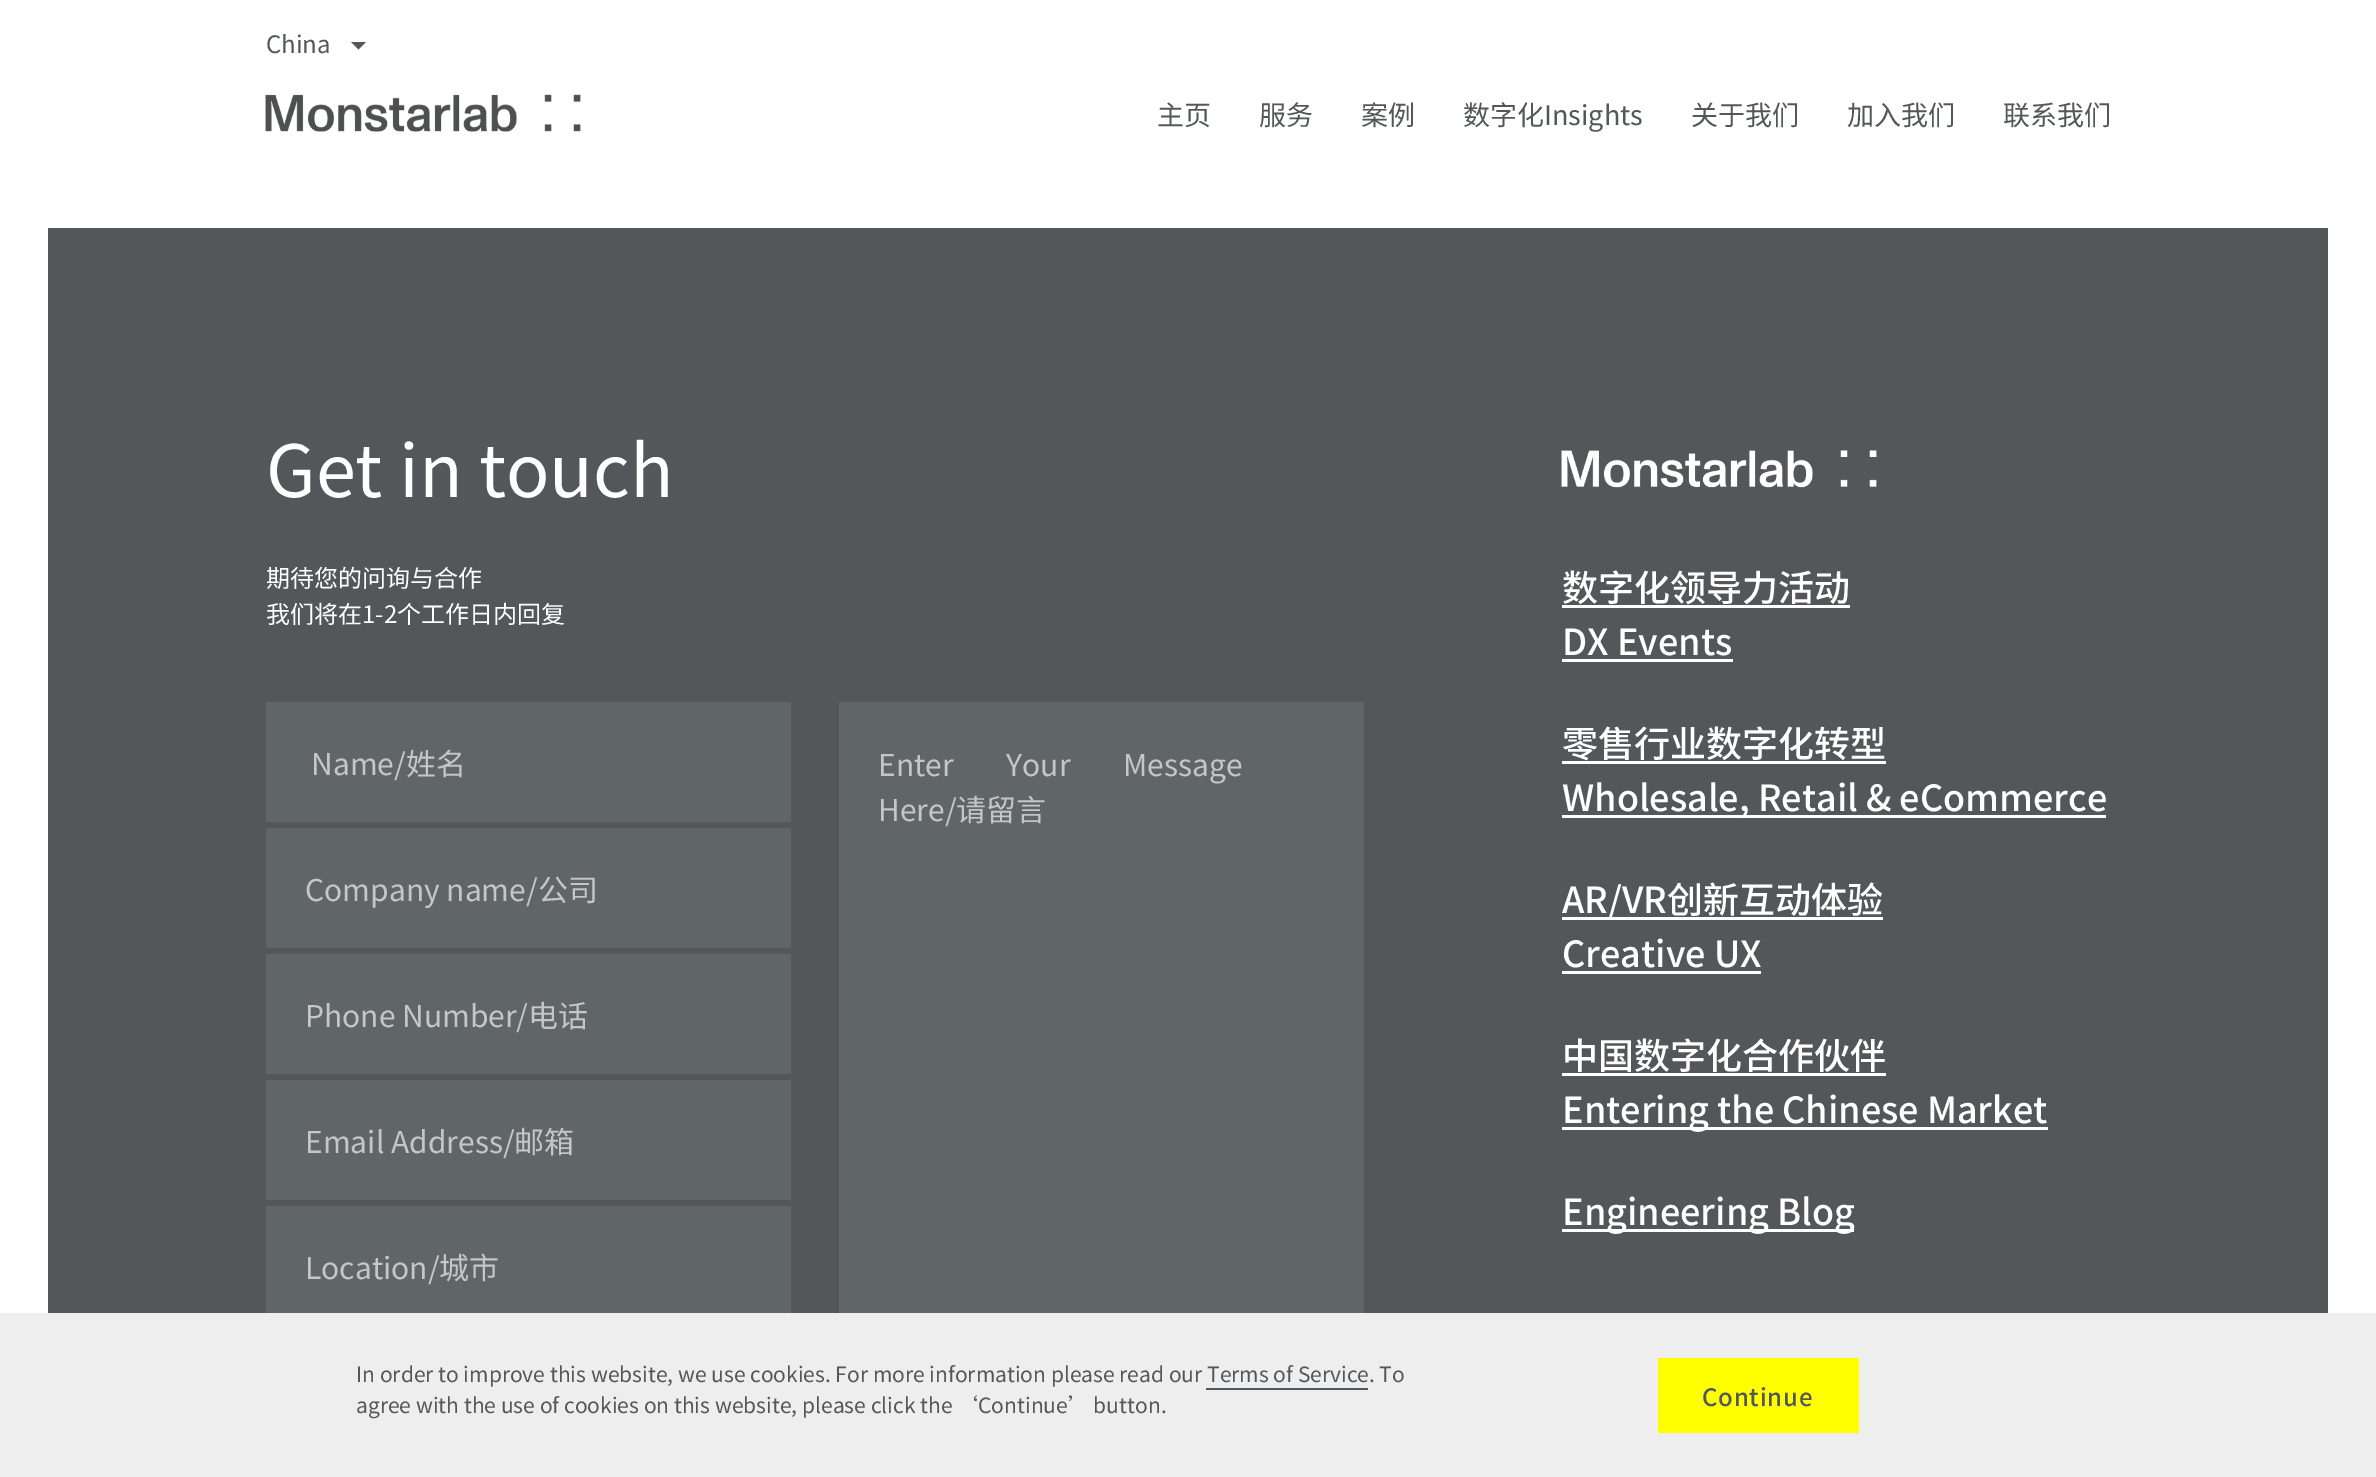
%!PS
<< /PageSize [2376 1477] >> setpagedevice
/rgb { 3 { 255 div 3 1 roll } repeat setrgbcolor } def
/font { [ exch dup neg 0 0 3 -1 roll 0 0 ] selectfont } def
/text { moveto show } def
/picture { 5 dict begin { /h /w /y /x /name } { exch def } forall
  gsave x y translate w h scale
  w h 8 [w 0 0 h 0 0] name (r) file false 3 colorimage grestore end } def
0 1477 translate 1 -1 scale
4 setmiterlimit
255 255 255 rgb
0 0 2376 1477 rectfill
83 87 90 rgb
351 42 moveto 7.5 7.5 rlineto 7.5 -7.5 rlineto closepath fill
(img_01.rgb) 265 94 316 38 picture
48 228 2280 1085 rectfill
96 101 104 rgb
266 702 525 120 rectfill
266 828 525 120 rectfill
266 954 525 120 rectfill
266 1080 525 120 rectfill
266 1206 525 107 rectfill
839 702 525 611 rectfill
(img_02.rgb) 1561 450 316 38 picture
255 255 255 rgb
1562 605 288 3 rectfill
1562 659 171 3 rectfill
1562 761 324 3 rectfill
1562 815 544 3 rectfill
1562 917 321 3 rectfill
1562 971 199 3 rectfill
1562 1073 324 3 rectfill
1562 1127 486 3 rectfill
1562 1229 292 3 rectfill
238 238 238 rgb
0 1313 2376 164 rectfill
83 87 90 rgb
1206 1388 162 2 rectfill
255 255 0 rgb
1658 1358 201 75 rectfill
/NotoSansSC-Regular 24 font
83 87 90 rgb
(China) 266 53 text
/NotoSansSC-Regular 27 font
(主页) 1157 125 text
(服务) 1259 125 text
(案例) 1361 125 text
(数字化Insights) 1463 125 text
(关于我们) 1691 125 text
(加入我们) 1847 125 text
(联系我们) 2003 125 text
/NotoSansSC-Regular 72 font
255 255 255 rgb
(Get in touch) 266 497 text
/NotoSansSC-Regular 24 font
(期待您的问询与合作) 266 587 text
(我们将在1-2个工作日内回复) 266 623 text
/NotoSansSC-Regular 30 font
196 198 199 rgb
(Name/姓名) 311 775 text
(Company name/公司) 305 901 text
(Phone Number/电话) 305 1027 text
(Email Address/邮箱) 305 1153 text
(Location/城市) 305 1279 text
878 776 moveto 46 0 32 (Enter Your Message) widthshow
(Here/请留言) 878 821 text
/NotoSansSC-Medium 36 font
255 255 255 rgb
(数字化领导力活动) 1562 601 text
(DX Events) 1562 655 text
(零售行业数字化转型) 1562 757 text
(Wholesale, Retail & eCommerce) 1562 811 text
(AR/VR创新互动体验) 1562 913 text
(Creative UX) 1562 967 text
(中国数字化合作伙伴) 1562 1069 text
(Entering the Chinese Market) 1562 1123 text
(Engineering Blog) 1562 1225 text
/NotoSansSC-Regular 21 font
83 87 90 rgb
(In order to improve this website, we use cookies. For more information please read our Terms of Service. To) 356 1382 text
(agree with the use of cookies on this website, please click the ‘Continue’ button.) 356 1413 text
/NotoSansSC-Medium 24 font
1702 1406 moveto 0.75 0 (Continue) ashow
showpage
